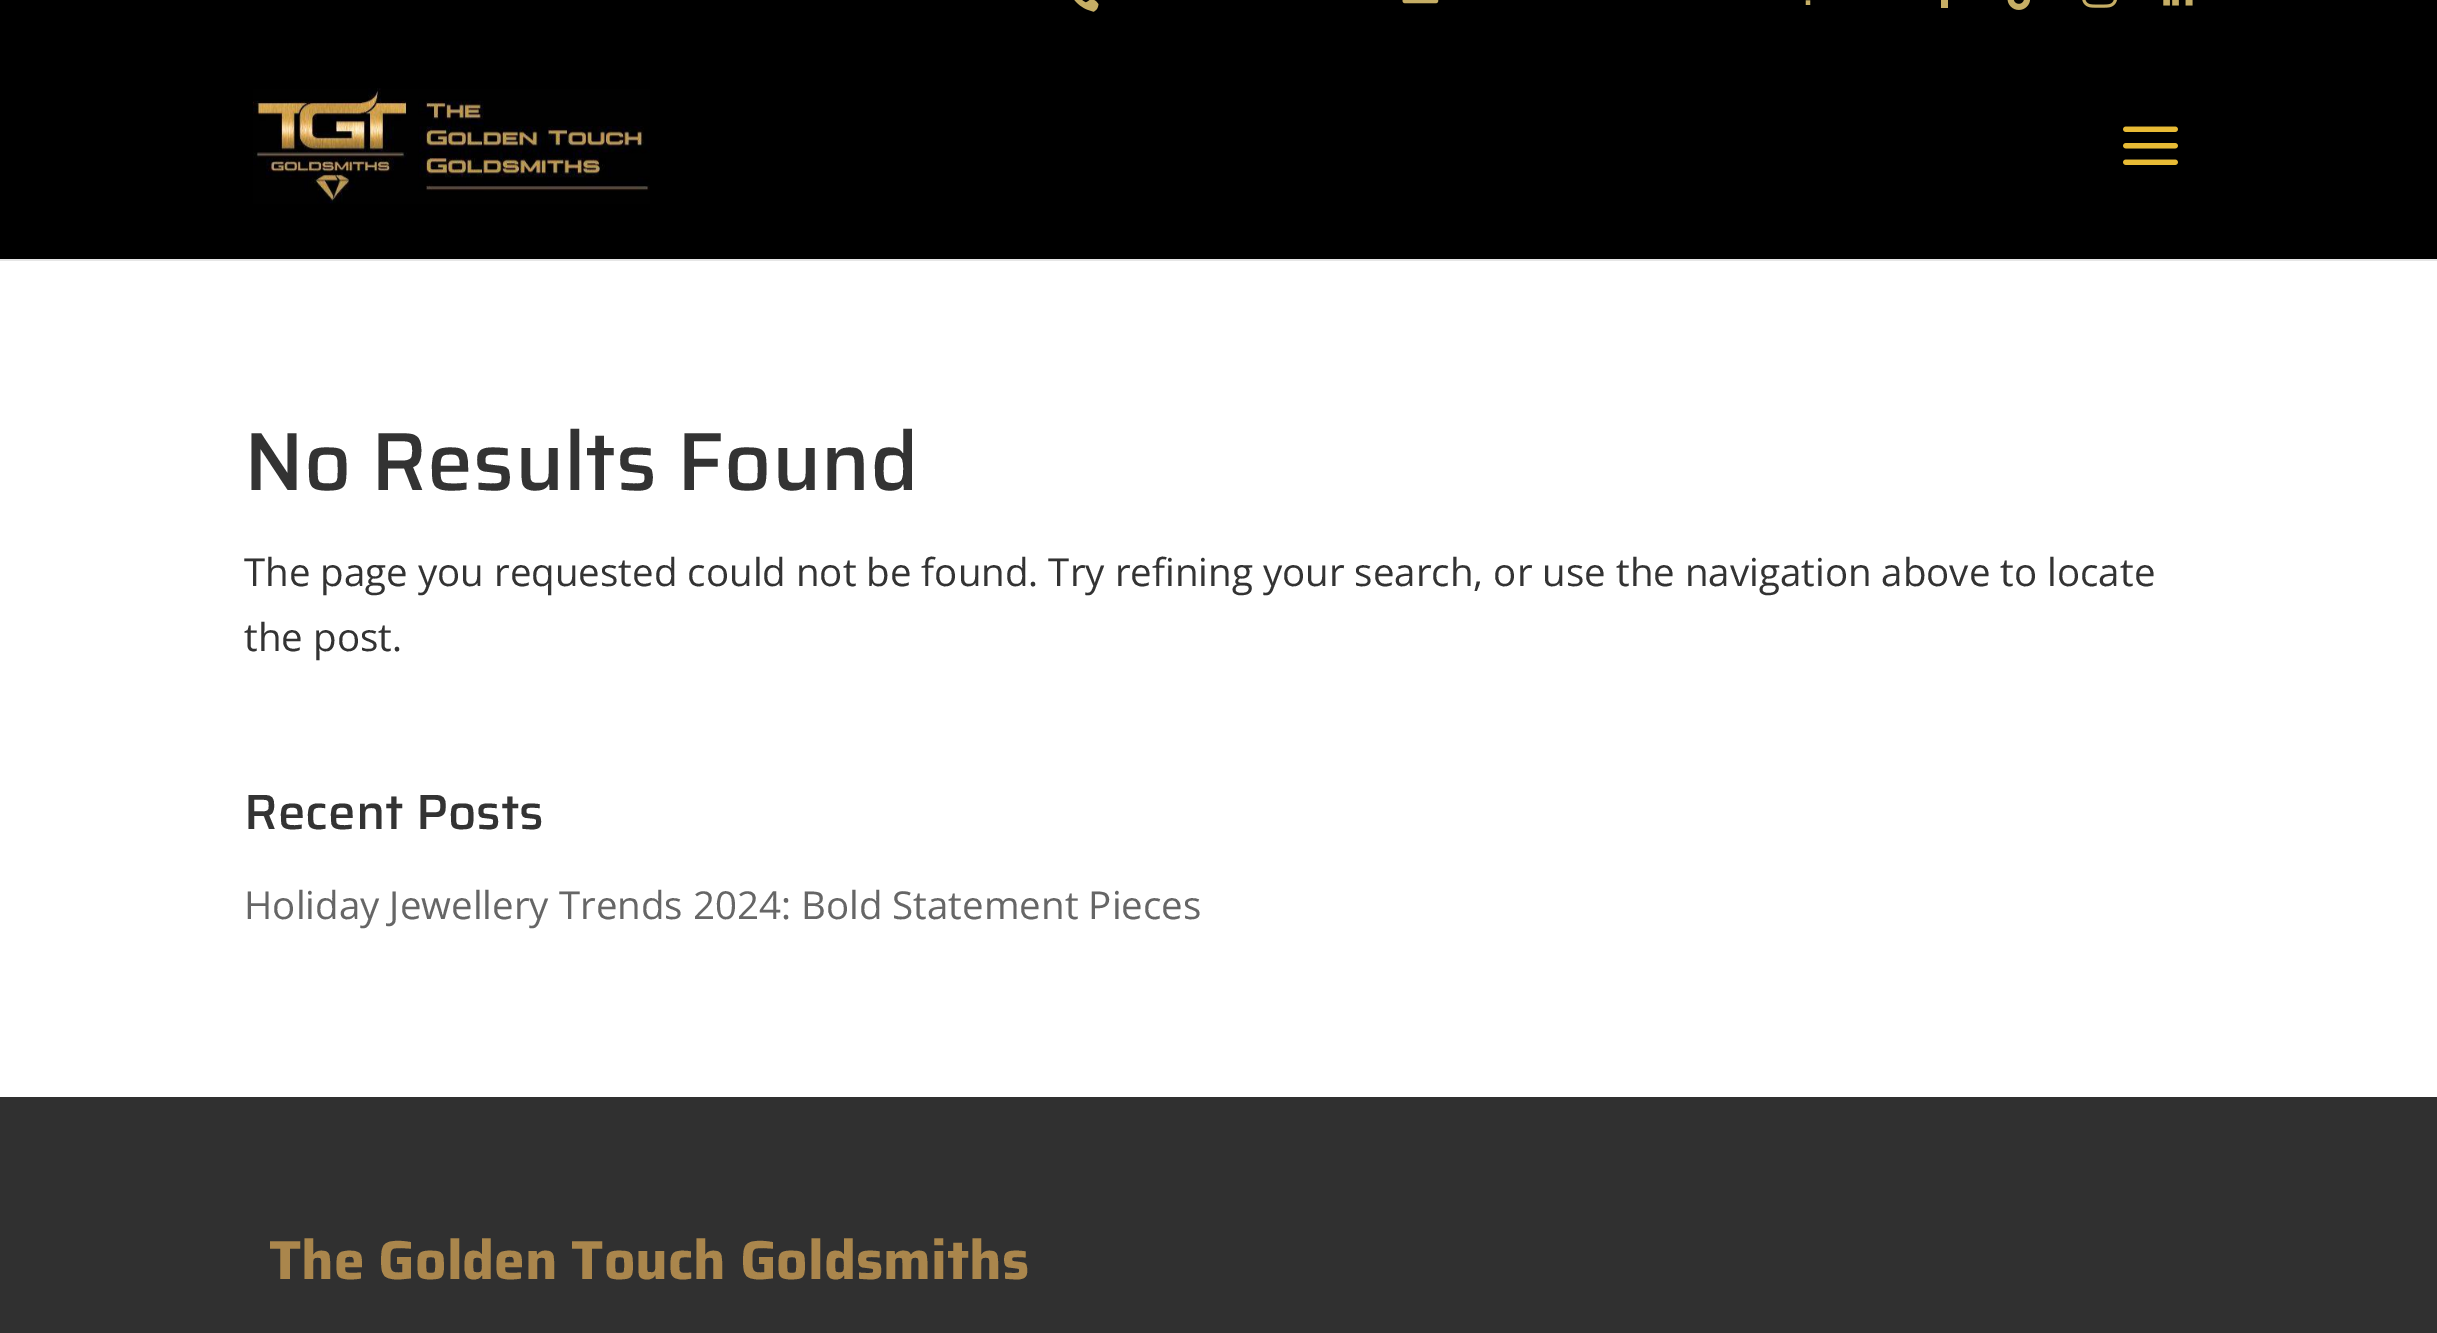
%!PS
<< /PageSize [2437 1333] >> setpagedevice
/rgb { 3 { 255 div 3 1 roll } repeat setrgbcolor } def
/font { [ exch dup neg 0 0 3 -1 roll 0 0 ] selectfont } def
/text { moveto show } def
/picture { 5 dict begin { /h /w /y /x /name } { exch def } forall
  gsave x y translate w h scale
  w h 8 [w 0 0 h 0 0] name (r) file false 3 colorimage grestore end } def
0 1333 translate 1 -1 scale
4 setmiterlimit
255 255 255 rgb
0 0 2437 1333 rectfill
230 230 230 rgb
0 259 2437 2 rectfill
0 0 0 rgb
0 0 2437 259 rectfill
(img_01.rgb) 253 88 397 116 picture
(img_02.rgb) 2123 126 55 39 picture
(img_03.rgb) 1074 0 25 12 picture
(img_04.rgb) 1402 0 37 4 picture
198 174 101 rgb
1941 0 7 8 rectfill
(img_05.rgb) 2007 0 23 10 picture
(img_06.rgb) 2082 0 35 8 picture
(img_07.rgb) 2163 0 30 6 picture
48 48 48 rgb
0 1097 2437 236 rectfill
/Arimo-SemiBold 36 font
198 174 101 rgb
(.) 1803 5 text
/Saira-Medium 82.5 font
51 51 51 rgb
(No Results Found) 244 490 text
/OpenSans-Regular 38.5 font
(The page you requested could not be found. Try refining your search, or use the navigation above to locate) 244 586 text
(the post.) 244 651 text
/Saira-Medium 49.5 font
(Recent Posts) 244 829 text
/OpenSans-Regular 38.5 font
102 102 102 rgb
(Holiday Jewellery Trends 2024: Bold Statement Pieces) 244 919 text
/Saira-Bold 55 font
170 134 76 rgb
(The Golden Touch Goldsmiths) 269 1279 text
showpage
